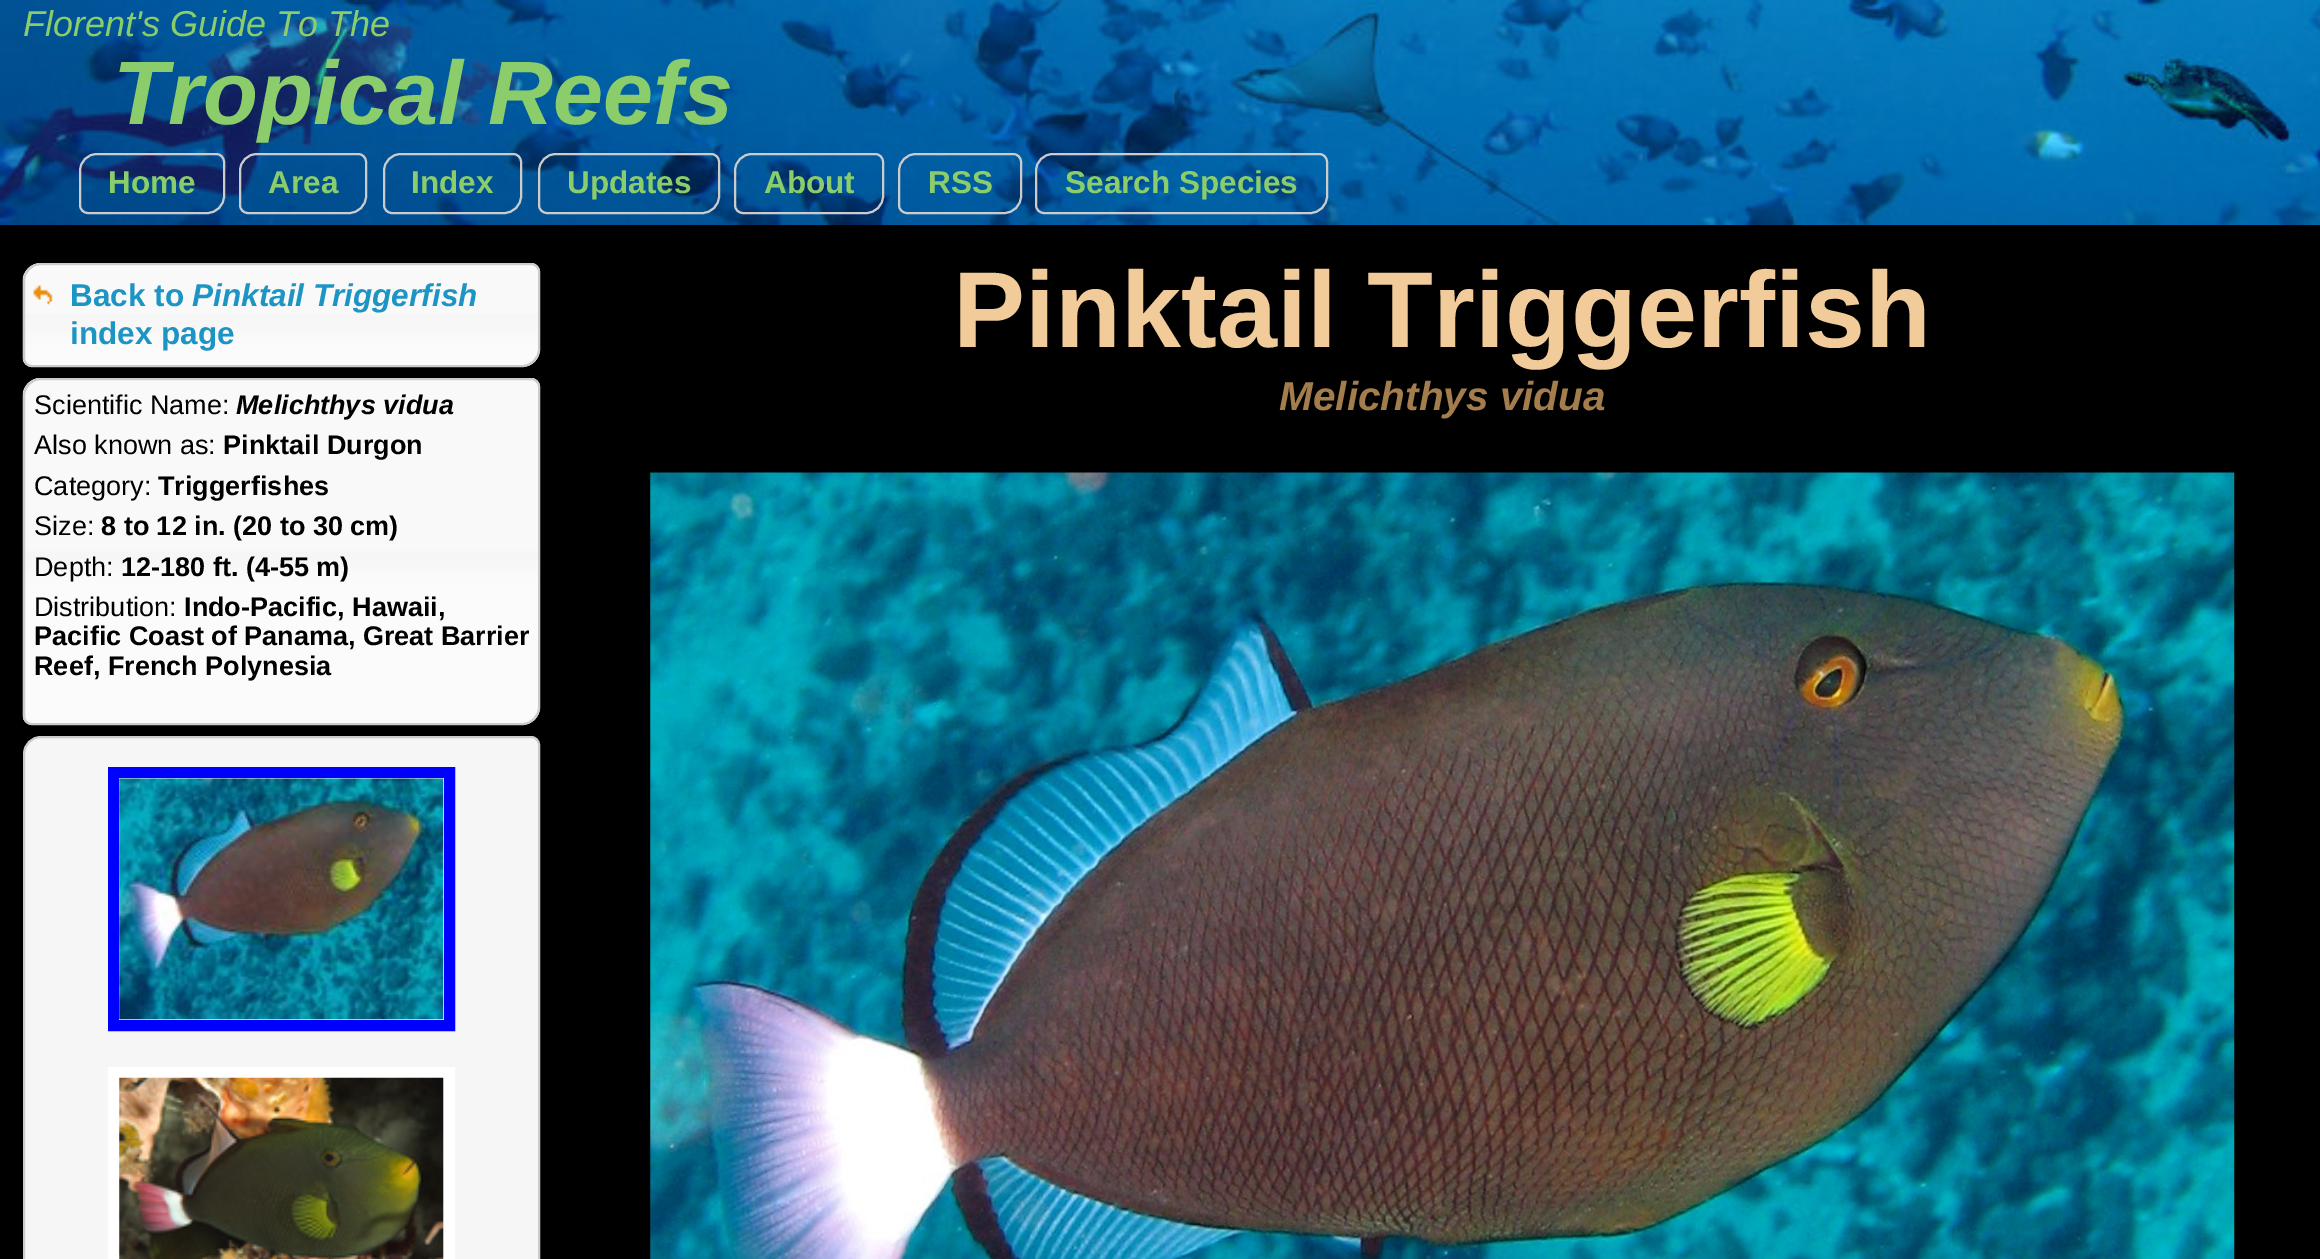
%!PS
<< /PageSize [2320 1259] >> setpagedevice
/rgb { 3 { 255 div 3 1 roll } repeat setrgbcolor } def
/font { [ exch dup neg 0 0 3 -1 roll 0 0 ] selectfont } def
/text { moveto show } def
/picture { 5 dict begin { /h /w /y /x /name } { exch def } forall
  gsave x y translate w h scale
  w h 8 [w 0 0 h 0 0] name (r) file false 3 colorimage grestore end } def
0 1259 translate 1 -1 scale
4 setmiterlimit
0 0 0 rgb
0 0 2320 1259 rectfill
(img_01.rgb) 0 0 2320 225 picture
204 204 204 rgb
2 setlinewidth
97 154 moveto 119 0 rlineto 4.5 0 8 3.5 8 8 rcurveto 0 34 rlineto 0 9.5 -7.5 17 -17 17 rcurveto -119 0 rlineto -4.5 0 -8 -3.5 -8 -8 rcurveto 0 -34 rlineto 0 -9.5 7.5 -17 17 -17 rcurveto closepath stroke
257 154 moveto 101 0 rlineto 4.5 0 8 3.5 8 8 rcurveto 0 34 rlineto 0 9.5 -7.5 17 -17 17 rcurveto -101 0 rlineto -4.5 0 -8 -3.5 -8 -8 rcurveto 0 -34 rlineto 0 -9.5 7.5 -17 17 -17 rcurveto closepath stroke
401 154 moveto 112 0 rlineto 4.5 0 8 3.5 8 8 rcurveto 0 34 rlineto 0 9.5 -7.5 17 -17 17 rcurveto -112 0 rlineto -4.5 0 -8 -3.5 -8 -8 rcurveto 0 -34 rlineto 0 -9.5 7.5 -17 17 -17 rcurveto closepath stroke
556 154 moveto 155 0 rlineto 4.5 0 8 3.5 8 8 rcurveto 0 34 rlineto 0 9.5 -7.5 17 -17 17 rcurveto -155 0 rlineto -4.5 0 -8 -3.5 -8 -8 rcurveto 0 -34 rlineto 0 -9.5 7.5 -17 17 -17 rcurveto closepath stroke
752 154 moveto 123 0 rlineto 4.5 0 8 3.5 8 8 rcurveto 0 34 rlineto 0 9.5 -7.5 17 -17 17 rcurveto -123 0 rlineto -4.5 0 -8 -3.5 -8 -8 rcurveto 0 -34 rlineto 0 -9.5 7.5 -17 17 -17 rcurveto closepath stroke
916 154 moveto 97 0 rlineto 4.5 0 8 3.5 8 8 rcurveto 0 34 rlineto 0 9.5 -7.5 17 -17 17 rcurveto -97 0 rlineto -4.5 0 -8 -3.5 -8 -8 rcurveto 0 -34 rlineto 0 -9.5 7.5 -17 17 -17 rcurveto closepath stroke
1053 154 moveto 266 0 rlineto 4.5 0 8 3.5 8 8 rcurveto 0 34 rlineto 0 9.5 -7.5 17 -17 17 rcurveto -266 0 rlineto -4.5 0 -8 -3.5 -8 -8 rcurveto 0 -34 rlineto 0 -9.5 7.5 -17 17 -17 rcurveto closepath stroke
(img_02.rgb) 22 263 518 104 picture
41 264 moveto 490 0 rlineto 4.5 0 8 3.5 8 8 rcurveto 0 77 rlineto 0 9.5 -7.5 17 -17 17 rcurveto -490 0 rlineto -4.5 0 -8 -3.5 -8 -8 rcurveto 0 -77 rlineto 0 -9.5 7.5 -17 17 -17 rcurveto closepath stroke
(img_03.rgb) 33 285 20 20 picture
(img_04.rgb) 22 378 518 347 picture
41 379 moveto 490 0 rlineto 4.5 0 8 3.5 8 8 rcurveto 0 320 rlineto 0 9.5 -7.5 17 -17 17 rcurveto -490 0 rlineto -4.5 0 -8 -3.5 -8 -8 rcurveto 0 -320 rlineto 0 -9.5 7.5 -17 17 -17 rcurveto closepath stroke
246 246 246 rgb
41 737 moveto 490 0 rlineto 4.5 0 8 3.5 8 8 rcurveto 0 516 rlineto 0 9.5 -7.5 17 -17 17 rcurveto -490 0 rlineto -4.5 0 -8 -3.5 -8 -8 rcurveto 0 -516 rlineto 0 -9.5 7.5 -17 17 -17 rcurveto closepath gsave fill grestore
204 204 204 rgb
stroke
0 0 255 rgb
11 setlinewidth
113.5 772.5 336 253 rectstroke
(img_05.rgb) 119 778 325 242 picture
255 255 255 rgb
113.5 1072.5 336 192 rectstroke
(img_06.rgb) 119 1077 325 182 picture
(img_07.rgb) 650 472 1585 787 picture
/LiberationSans-Italic 36 font
139 205 107 rgb
(Florent's Guide To The) 23 36 text
/LiberationSans-BoldItalic 90 font
(Tropical Reefs) 113 124 text
/LiberationSans-Bold 31.5 font
(Home) 108 193 text
(Area) 268 193 text
(Index) 411 193 text
(Updates) 567 193 text
(About) 764 193 text
(RSS) 928 193 text
(Search Species) 1065 193 text
28 148 196 rgb
(Back to) 70 306 text
/LiberationSans-BoldItalic 31.5 font
(Pinktail Triggerfish) 192 306 text
/LiberationSans-Bold 31.5 font
(index page) 70 344 text
/LiberationSans-Regular 27 font
0 0 0 rgb
(Scientific Name:) 34 414 text
/LiberationSans-BoldItalic 27 font
(Melichthys vidua) 236 414 text
/LiberationSans-Regular 27 font
(Also known as:) 34 454 text
/LiberationSans-Bold 27 font
(Pinktail Durgon) 223 454 text
/LiberationSans-Regular 27 font
(Category:) 34 495 text
/LiberationSans-Bold 27 font
(Triggerfishes) 158 495 text
/LiberationSans-Regular 27 font
(Size:) 34 535 text
/LiberationSans-Bold 27 font
(8 to 12 in. \(20 to 30 cm\)) 101 535 text
/LiberationSans-Regular 27 font
(Depth:) 34 576 text
/LiberationSans-Bold 27 font
(12-180 ft. \(4-55 m\)) 121 576 text
/LiberationSans-Regular 27 font
(Distribution:) 34 616 text
/LiberationSans-Bold 27 font
(Indo-Pacific, Hawaii,) 184 616 text
(Pacific Coast of Panama, Great Barrier) 34 645 text
(Reef, French Polynesia) 34 675 text
/LiberationSans-Bold 108 font
241 203 153 rgb
(Pinktail Triggerfish) 953 347 text
/LiberationSans-BoldItalic 40.5 font
163 125 76 rgb
(Melichthys vidua) 1279 410 text
showpage
